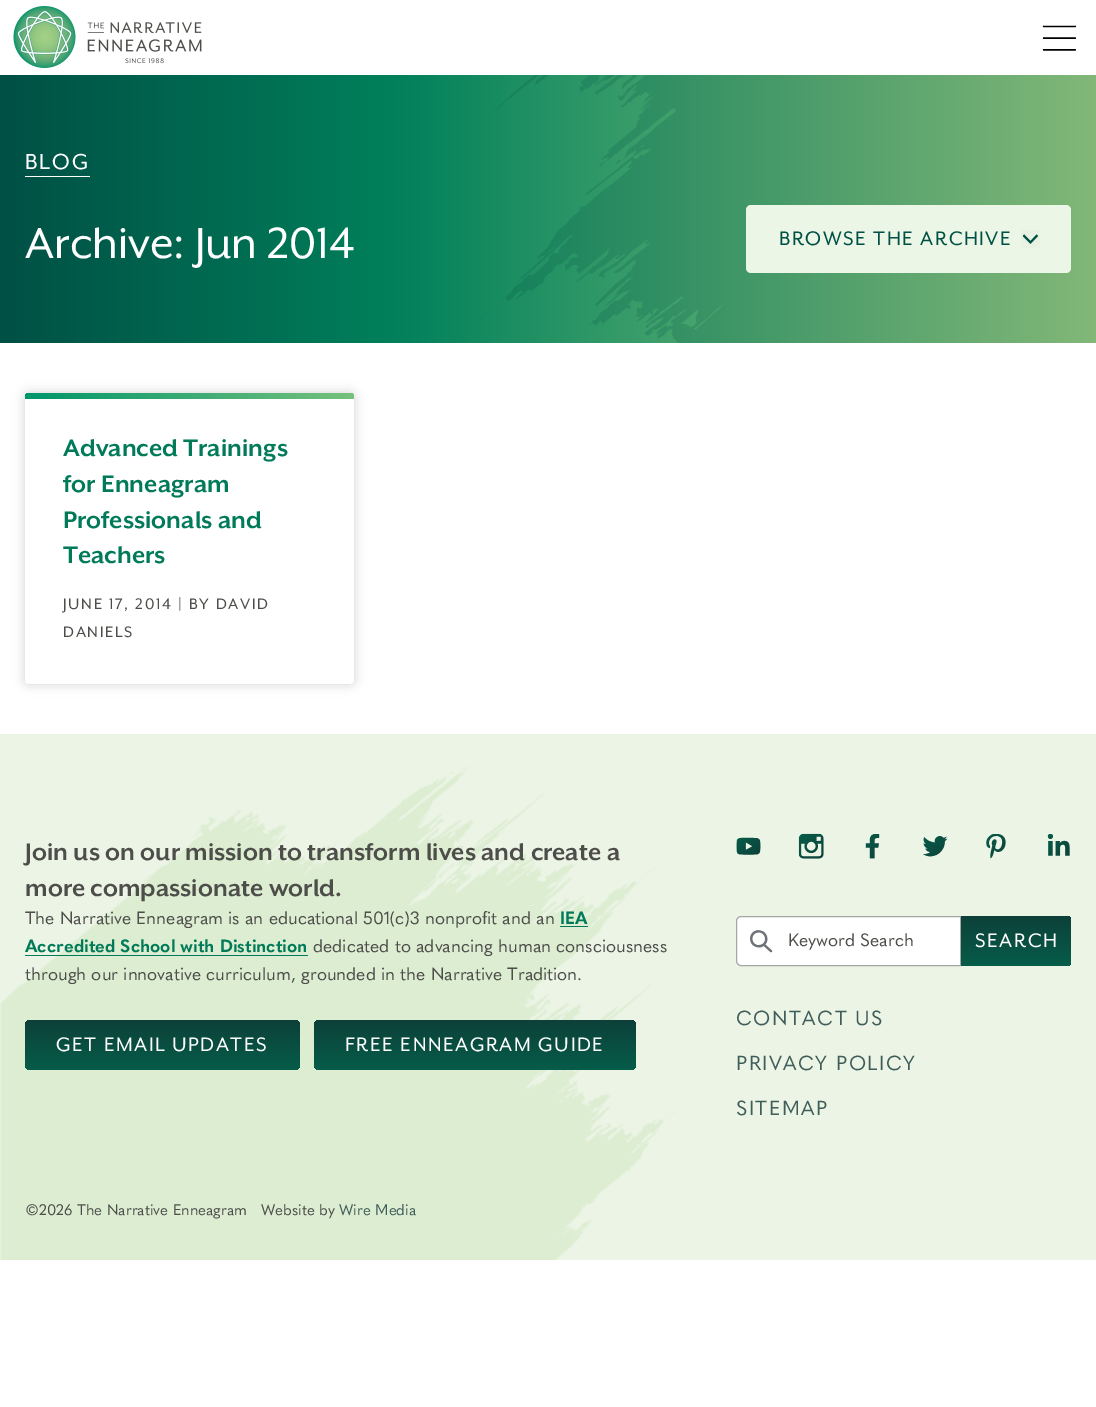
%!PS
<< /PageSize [1096 1407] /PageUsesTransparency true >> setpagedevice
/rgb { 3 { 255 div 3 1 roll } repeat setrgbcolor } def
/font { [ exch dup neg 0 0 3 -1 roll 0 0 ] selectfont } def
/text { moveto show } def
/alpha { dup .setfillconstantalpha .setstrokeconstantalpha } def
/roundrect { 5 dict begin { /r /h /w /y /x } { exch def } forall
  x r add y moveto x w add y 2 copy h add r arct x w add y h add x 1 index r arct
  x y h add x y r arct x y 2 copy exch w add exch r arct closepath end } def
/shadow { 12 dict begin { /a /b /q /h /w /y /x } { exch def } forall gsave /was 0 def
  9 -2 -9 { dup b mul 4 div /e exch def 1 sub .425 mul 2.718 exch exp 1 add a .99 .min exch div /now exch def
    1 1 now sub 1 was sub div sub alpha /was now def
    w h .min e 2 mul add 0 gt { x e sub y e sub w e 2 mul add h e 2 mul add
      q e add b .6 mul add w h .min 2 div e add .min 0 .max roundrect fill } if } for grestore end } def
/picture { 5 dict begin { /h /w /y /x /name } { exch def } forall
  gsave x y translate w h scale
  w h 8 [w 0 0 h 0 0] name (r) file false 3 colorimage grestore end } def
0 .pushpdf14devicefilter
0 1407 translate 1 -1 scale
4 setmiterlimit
255 255 255 rgb
0 0 1096 1407 rectfill
(img_01.rgb) 13 6 189 62 picture
(img_02.rgb) 1042 25 34 26 picture
gsave 0 75 moveto 1096 0 rlineto 0 268 rlineto -1096 0 rlineto closepath clip newpath
<< /ShadingType 2 /ColorSpace /DeviceRGB /Coords [1096 209 0 209] /Extend [true true] /Function << /FunctionType 3 /Domain [0 1] /Functions [<< /FunctionType 2 /Domain [0 1] /C0 [0.635 0.82 0.518] /C1 [0 0.502 0.357] /N 1 >> << /FunctionType 2 /Domain [0 1] /C0 [0 0.502 0.357] /C1 [0 0.314 0.271] /N 1 >>] /Bounds [0.64] /Encode [0 1 0 1] >> >> shfill grestore
(img_03.rgb) 480 75 616 268 picture
25 176 65 1 rectfill
236 246 230 rgb
746 205 325 68 5 roundrect fill
(img_04.rgb) 1021 230 19 18 picture
0 0 0 rgb
25 393 329 291 4 6 0.18 shadow
255 255 255 rgb
25 393 329 291 4 roundrect fill
gsave 29 393 moveto 321 0 rlineto 2 0 4 2 4 4 rcurveto 0 2 rlineto -329 0 rlineto 0 -2 rlineto 0 -2 2 -4 4 -4 rcurveto closepath clip newpath
<< /ShadingType 2 /ColorSpace /DeviceRGB /Coords [354 396 25 396] /Extend [true true] /Function << /FunctionType 2 /Domain [0 1] /C0 [0.463 0.757 0.49] /C1 [0 0.588 0.424] /N 1 >> >> shfill grestore
235 244 229 rgb
0 734 1096 526 rectfill
(img_05.rgb) 0 766 676 494 picture
0 122 88 rgb
560 926 28 1 rectfill
25 955 283 1 rectfill
gsave 25 1020 275 50 5 roundrect clip newpath
<< /ShadingType 2 /ColorSpace /DeviceRGB /Coords [163 1070 163 1020] /Extend [true true] /Function << /FunctionType 2 /Domain [0 1] /C0 [0.024 0.365 0.286] /C1 [0.051 0.251 0.224] /N 1 >> >> shfill grestore
gsave 314 1020 322 50 5 roundrect clip newpath
<< /ShadingType 2 /ColorSpace /DeviceRGB /Coords [475 1070 475 1020] /Extend [true true] /Function << /FunctionType 2 /Domain [0 1] /C0 [0.024 0.365 0.286] /C1 [0.051 0.251 0.224] /N 1 >> >> shfill grestore
(img_06.rgb) 736 837 25 18 picture
(img_07.rgb) 798 833 26 26 picture
(img_08.rgb) 865 834 15 25 picture
(img_09.rgb) 923 836 25 21 picture
(img_10.rgb) 986 834 20 25 picture
(img_11.rgb) 1047 834 23 22 picture
255 255 255 rgb
741 916.5 moveto 219.5 0 rlineto 0 49 rlineto -219.5 0 rlineto -2.5 0 -4.5 -2 -4.5 -4.5 rcurveto 0 -40 rlineto 0 -2.5 2 -4.5 4.5 -4.5 rcurveto closepath gsave fill grestore
166 166 164 rgb
stroke
(img_12.rgb) 750 930 23 23 picture
gsave 961 916 moveto 105 0 rlineto 3 0 5 2 5 5 rcurveto 0 40 rlineto 0 3 -2 5 -5 5 rcurveto -105 0 rlineto closepath clip newpath
<< /ShadingType 2 /ColorSpace /DeviceRGB /Coords [1016 966 1016 916] /Extend [true true] /Function << /FunctionType 2 /Domain [0 1] /C0 [0.024 0.365 0.286] /C1 [0.051 0.251 0.224] /N 1 >> >> shfill grestore
/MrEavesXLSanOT-Regular 25 font
255 255 255 rgb
25 169 moveto 2 0 (BLOG) ashow
/MrEavesXLSanOT-Regular 50 font
(Archive: Jun 2014) 25 258 text
/MrEavesXLSanOT-Regular 22.5 font
0 80 69 rgb
779 245 moveto 1.6 0 (BROWSE THE ARCHIVE) ashow
/MrEavesXLSanOT-Bold 27.5 font
0 122 88 rgb
(Advanced Trainings) 63 456 text
(for Enneagram) 63 492 text
(Professionals and) 63 528 text
(Teachers) 63 563 text
/MrEavesXLSanOT-Regular 17.5 font
77 77 74 rgb
63 609 moveto 1.75 0 (JUNE 17, 2014 | BY DAVID) ashow
63 637 moveto 1.75 0 (DANIELS) ashow
/MrEavesXLSanOT-Bold 27.5 font
(Join us on our mission to transform lives and create a) 25 860 text
(more compassionate world.) 25 896 text
/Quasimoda-Regular 17.5 font
(The Narrative Enneagram is an educational 501\(c\)3 nonprofit and an) 25 924 text
/Quasimoda-Bold 17.5 font
0 122 88 rgb
(IEA) 560 924 text
(Accredited School with Distinction) 25 952 text
/Quasimoda-Regular 17.5 font
77 77 74 rgb
(dedicated to advancing human consciousness) 313 952 text
(through our innovative curriculum, grounded in the Narrative Tradition.) 25 980 text
/MrEavesXLSanOT-Regular 22.5 font
255 255 255 rgb
56 1051 moveto 1.6 0 (GET EMAIL UPDATES) ashow
345 1051 moveto 1.6 0 (FREE ENNEAGRAM GUIDE) ashow
/Quasimoda-Regular 17.5 font
77 77 74 rgb
(Keyword Search) 788 946 text
/MrEavesXLSanOT-Regular 22.5 font
255 255 255 rgb
975 947 moveto 1.6 0 (SEARCH) ashow
/Quasimoda-Regular 20 font
63 93 89 rgb
736 1025 moveto 1.5 0 (CONTACT US) ashow
736 1070 moveto 1.5 0 (PRIVACY POLICY) ashow
736 1115 moveto 1.5 0 (SITEMAP) ashow
/Quasimoda-Regular 15 font
77 77 74 rgb
(©2026 The Narrative Enneagram) 25 1215 text
(Website by) 261 1215 text
63 93 89 rgb
(Wire Media) 339 1215 text
.poppdf14devicefilter showpage
